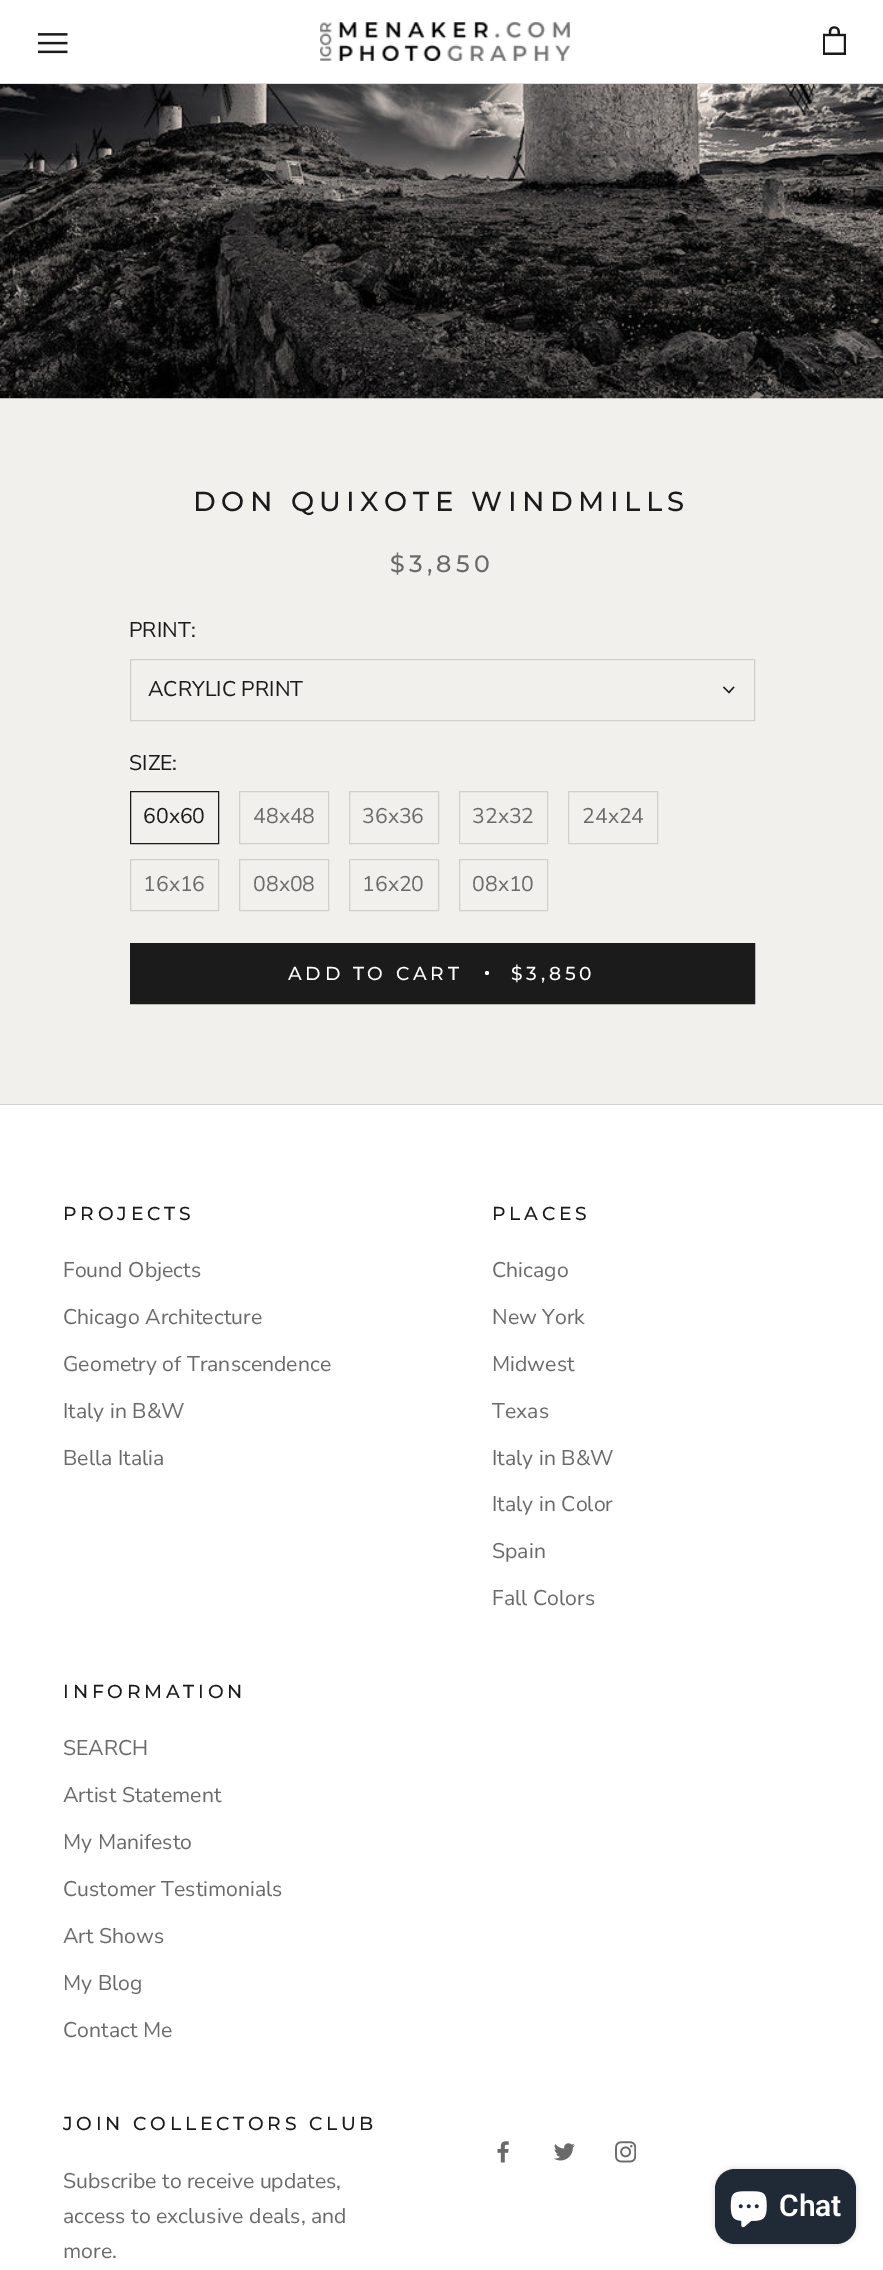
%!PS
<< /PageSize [883 2270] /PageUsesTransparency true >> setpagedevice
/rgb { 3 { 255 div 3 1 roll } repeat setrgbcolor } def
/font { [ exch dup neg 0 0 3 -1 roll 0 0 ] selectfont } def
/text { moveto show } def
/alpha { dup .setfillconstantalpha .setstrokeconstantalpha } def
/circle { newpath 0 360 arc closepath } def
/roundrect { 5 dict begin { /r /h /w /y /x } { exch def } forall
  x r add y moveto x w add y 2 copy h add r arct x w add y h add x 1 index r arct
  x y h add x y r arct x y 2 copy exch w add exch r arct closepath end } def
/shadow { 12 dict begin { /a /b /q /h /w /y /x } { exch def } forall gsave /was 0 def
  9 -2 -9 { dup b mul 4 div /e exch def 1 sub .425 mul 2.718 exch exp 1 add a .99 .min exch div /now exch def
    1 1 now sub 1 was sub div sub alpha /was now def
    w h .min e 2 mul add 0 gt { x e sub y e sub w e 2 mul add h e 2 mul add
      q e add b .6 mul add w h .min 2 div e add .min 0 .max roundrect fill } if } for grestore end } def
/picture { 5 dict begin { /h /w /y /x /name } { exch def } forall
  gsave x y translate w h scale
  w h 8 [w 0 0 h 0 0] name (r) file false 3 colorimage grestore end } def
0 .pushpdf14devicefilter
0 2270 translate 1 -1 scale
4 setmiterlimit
242 240 236 rgb
0 0 883 2270 rectfill
255 255 255 rgb
0 0 883 83 rectfill
221 221 221 rgb
0 83 883 1 rectfill
(img_01.rgb) 38 33 30 21 picture
(img_02.rgb) 320 22 250 39 picture
(img_03.rgb) 823 26 23 29 picture
(img_04.rgb) 0 84 883 315 picture
210 208 205 rgb
130.5 659.5 624 61 rectstroke
28 27 27 rgb
1.3 setlinewidth
2 setlinecap
733.5 687.5 moveto -4.5 5 rlineto -5 -5 rlineto stroke
1 setlinewidth
0 setlinecap
130.5 791.5 88 52 rectstroke
210 208 205 rgb
239.5 791.5 89 52 rectstroke
349.5 791.5 89 52 rectstroke
459.5 791.5 88 52 rectstroke
568.5 791.5 89 52 rectstroke
130.5 859.5 88 51 rectstroke
239.5 859.5 89 51 rectstroke
349.5 859.5 89 51 rectstroke
459.5 859.5 88 51 rectstroke
28 27 27 rgb
130.5 943.5 624 60 rectstroke
131 944 623 59 rectfill
255 255 255 rgb
487 973 2 circle fill
210 208 205 rgb
0 1104 883 1 rectfill
255 255 255 rgb
0 1105 883 1165 rectfill
(img_05.rgb) 497 2141 12 22 picture
(img_06.rgb) 554 2143 21 18 picture
(img_07.rgb) 615 2141 21 22 picture
0 0 0 rgb
715 2169 141 75 20 3 0.15 shadow
32 42 54 rgb
715 2169 141 75 20 roundrect fill
(img_08.rgb) 730 2191 37 37 picture
/Montserrat-Medium 27.5 font
28 27 27 rgb
193 511 moveto 5.5 0 (DON QUIXOTE WINDMILLS) ashow
/Montserrat-Medium 23.75 font
106 106 106 rgb
390 572 moveto 4.25 0 ($3,850) ashow
/NunitoSans-Regular 21.25 font
28 27 27 rgb
(PRINT:) 129 637 text
(ACRYLIC PRINT) 148 696 text
(SIZE:) 129 770 text
(60x60) 143 823 text
106 106 106 rgb
(48x48) 253 823 text
(36x36) 362 823 text
(32x32) 472 823 text
(24x24) 582 823 text
(16x16) 143 891 text
(08x08) 253 891 text
(16x20) 362 891 text
(08x10) 472 891 text
/Montserrat-Medium 18.75 font
255 255 255 rgb
288 980 moveto 3.75 0 (ADD TO CART) ashow
511 980 moveto 3.75 0 ($3,850) ashow
28 27 27 rgb
63 1220 moveto 3.75 0 (PROJECTS) ashow
/NunitoSans-Regular 21.25 font
106 106 106 rgb
(Found Objects) 63 1277 text
(Chicago Architecture) 63 1324 text
(Geometry of Transcendence) 63 1371 text
(Italy in B&W) 63 1418 text
(Bella Italia) 63 1465 text
/Montserrat-Medium 18.75 font
28 27 27 rgb
492 1220 moveto 3.75 0 (PLACES) ashow
/NunitoSans-Regular 21.25 font
106 106 106 rgb
(Chicago) 492 1277 text
(New York) 492 1324 text
(Midwest) 492 1371 text
(Texas) 492 1418 text
(Italy in B&W) 492 1465 text
(Italy in Color) 492 1511 text
(Spain) 492 1558 text
(Fall Colors) 492 1605 text
/Montserrat-Medium 18.75 font
28 27 27 rgb
63 1698 moveto 3.75 0 (INFORMATION) ashow
/NunitoSans-Regular 21.25 font
106 106 106 rgb
(SEARCH) 63 1755 text
(Artist Statement) 63 1802 text
(My Manifesto) 63 1849 text
(Customer Testimonials) 63 1896 text
(Art Shows) 63 1943 text
(My Blog) 63 1990 text
(Contact Me) 63 2037 text
/Montserrat-Medium 18.75 font
28 27 27 rgb
63 2130 moveto 3.75 0 (JOIN COLLECTORS CLUB) ashow
/NunitoSans-Regular 21.25 font
106 106 106 rgb
(Subscribe to receive updates,) 63 2188 text
(access to exclusive deals, and) 63 2223 text
(more.) 63 2258 text
/Roboto-SemiBold 30 font
255 255 255 rgb
(Chat) 779 2216 text
.poppdf14devicefilter showpage
